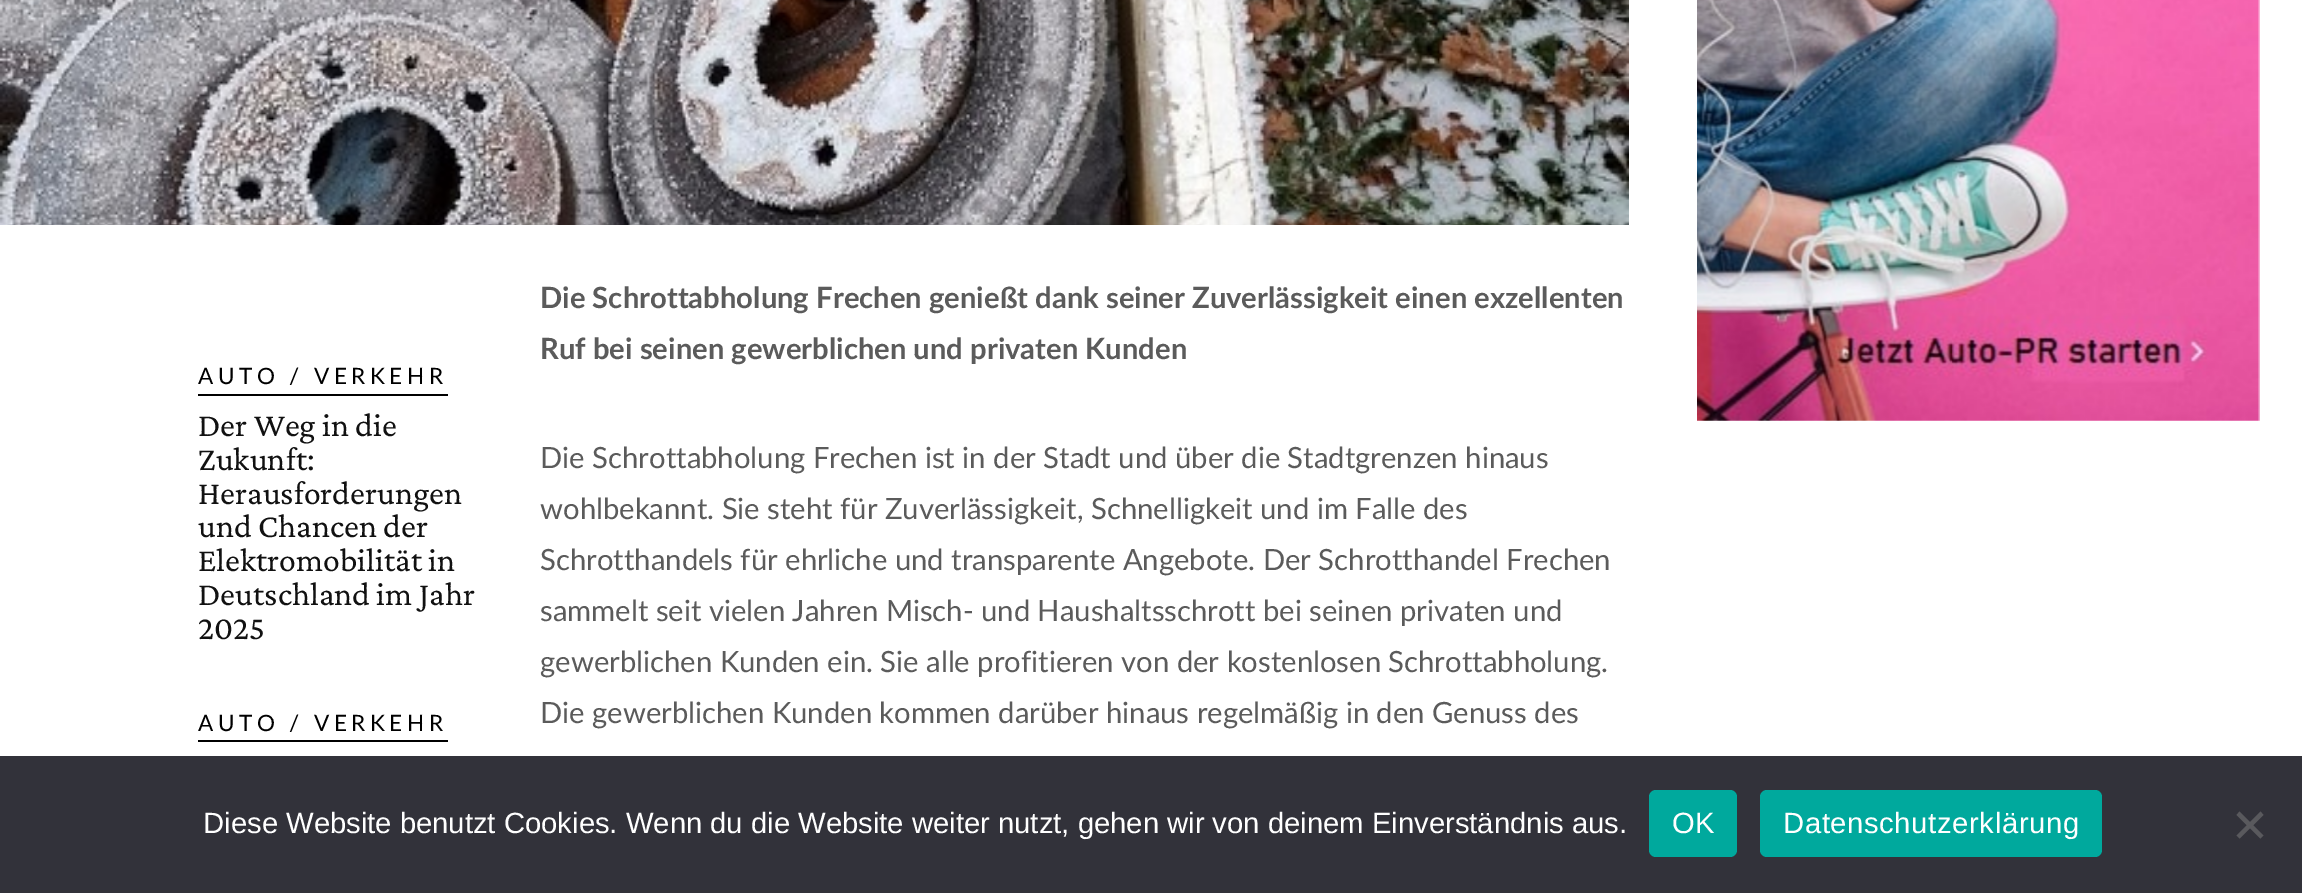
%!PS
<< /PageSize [2302 893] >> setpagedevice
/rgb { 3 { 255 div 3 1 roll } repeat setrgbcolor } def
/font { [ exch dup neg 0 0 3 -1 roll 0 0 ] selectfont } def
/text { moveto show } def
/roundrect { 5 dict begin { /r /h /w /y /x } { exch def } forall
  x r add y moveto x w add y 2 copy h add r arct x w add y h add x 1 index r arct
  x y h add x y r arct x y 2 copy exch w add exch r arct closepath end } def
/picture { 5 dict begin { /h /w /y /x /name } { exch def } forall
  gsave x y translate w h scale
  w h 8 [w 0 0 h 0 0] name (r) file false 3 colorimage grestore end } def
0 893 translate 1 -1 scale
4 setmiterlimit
255 255 255 rgb
0 0 2302 893 rectfill
(img_01.rgb) 1697 0 563 421 picture
(img_02.rgb) 0 0 1629 225 picture
0 0 0 rgb
198 394 250 2 rectfill
198 740 250 2 rectfill
50 50 58 rgb
0 756 2302 137 rectfill
0 169 157 rgb
1649 790 88 67 7 roundrect fill
1760 790 342 67 7 roundrect fill
89 89 93 rgb
2260.5 811.5 moveto 3 3.5 rlineto -24 23.5 rlineto -3 -3 rlineto closepath fill
2236.5 815 moveto 3 -3.5 rlineto 24 24 rlineto -3 3 rlineto closepath fill
/Lato-Regular 22.5 font
0 0 0 rgb
198 384 moveto 4.5 0 (AUTO / VERKEHR) ashow
/CrimsonPro-Regular 33.75 font
17 17 17 rgb
(Der Weg in die) 198 436 text
(Zukunft:) 198 470 text
(Herausforderungen) 198 504 text
(und Chancen der) 198 537 text
(Elektromobilität in) 198 571 text
(Deutschland im Jahr) 198 605 text
(2025) 198 639 text
/Lato-Regular 22.5 font
0 0 0 rgb
198 731 moveto 4.5 0 (AUTO / VERKEHR) ashow
/Lato-Bold 29.25 font
91 91 91 rgb
(Die Schrottabholung Frechen genießt dank seiner Zuverlässigkeit einen exzellenten) 540 308 text
(Ruf bei seinen gewerblichen und privaten Kunden) 540 359 text
/Lato-Regular 29.25 font
(Die Schrottabholung Frechen ist in der Stadt und über die Stadtgrenzen hinaus) 540 468 text
(wohlbekannt. Sie steht für Zuverlässigkeit, Schnelligkeit und im Falle des) 540 519 text
(Schrotthandels für ehrliche und transparente Angebote. Der Schrotthandel Frechen) 540 570 text
(sammelt seit vielen Jahren Misch- und Haushaltsschrott bei seinen privaten und) 540 621 text
(gewerblichen Kunden ein. Sie alle profitieren von der kostenlosen Schrottabholung.) 540 672 text
(Die gewerblichen Kunden kommen darüber hinaus regelmäßig in den Genuss des) 540 723 text
/LiberationSans-Regular 29.25 font
255 255 255 rgb
(Diese Website benutzt Cookies. Wenn du die Website weiter nutzt, gehen wir von deinem Einverständnis aus.) 203 833 text
1672 833 moveto 0.6 0 (OK) ashow
1783 833 moveto 0.6 0 (Datenschutzerklärung) ashow
showpage
